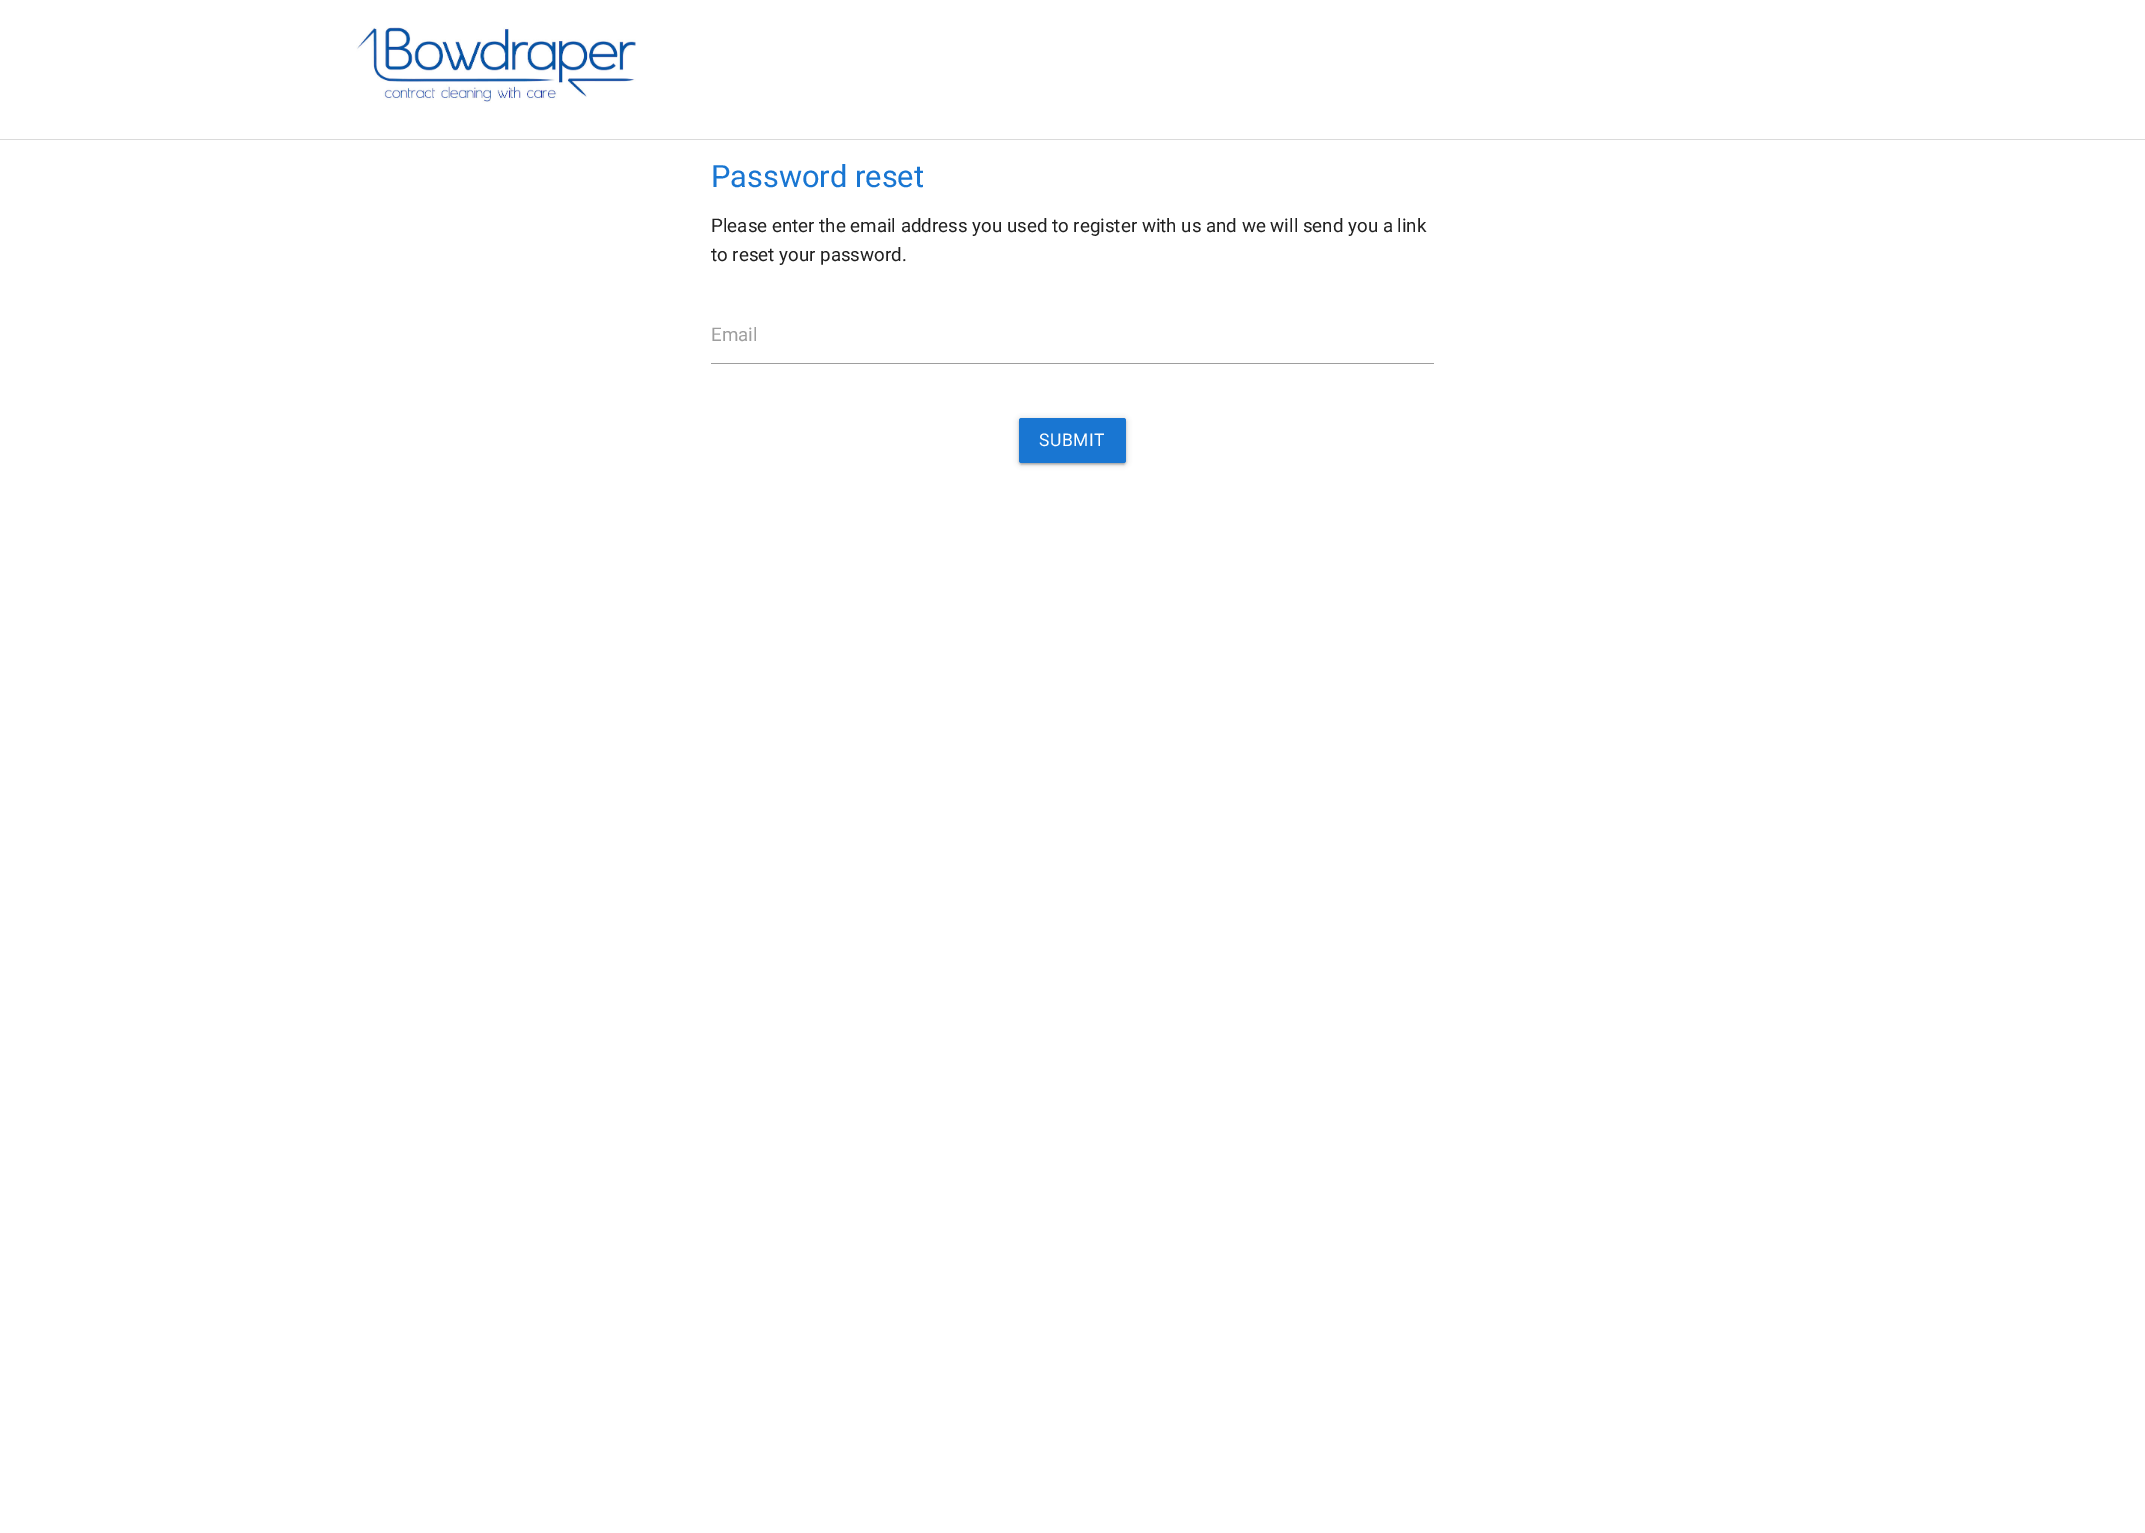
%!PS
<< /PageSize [2145 1533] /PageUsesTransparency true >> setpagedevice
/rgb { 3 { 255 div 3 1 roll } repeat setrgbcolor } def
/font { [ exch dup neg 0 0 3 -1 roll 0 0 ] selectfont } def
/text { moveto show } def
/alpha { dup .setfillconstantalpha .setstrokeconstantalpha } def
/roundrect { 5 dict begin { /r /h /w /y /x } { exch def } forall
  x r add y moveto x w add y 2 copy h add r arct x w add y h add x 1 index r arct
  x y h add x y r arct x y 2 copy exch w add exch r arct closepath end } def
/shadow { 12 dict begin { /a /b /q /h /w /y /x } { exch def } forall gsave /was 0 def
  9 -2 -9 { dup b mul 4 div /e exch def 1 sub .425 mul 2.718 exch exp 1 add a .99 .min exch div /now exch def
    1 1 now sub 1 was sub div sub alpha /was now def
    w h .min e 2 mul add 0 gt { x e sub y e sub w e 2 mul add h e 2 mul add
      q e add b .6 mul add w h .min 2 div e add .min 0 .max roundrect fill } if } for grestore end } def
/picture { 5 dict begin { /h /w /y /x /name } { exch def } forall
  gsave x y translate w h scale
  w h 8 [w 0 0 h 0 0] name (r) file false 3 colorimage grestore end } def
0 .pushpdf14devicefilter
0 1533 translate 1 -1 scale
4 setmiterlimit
255 255 255 rgb
0 0 2145 1533 rectfill
218 218 218 rgb
0 139 2145 1 rectfill
(img_01.rgb) 356 27 280 76 picture
158 158 158 rgb
711 363 723 1 rectfill
0 0 0 rgb
1019 419 107 45 2.5 3 0.2 shadow
1021 424 103 40 0 0.5 0.12 shadow
1019 420 107 45 2.5 1 0.14 shadow
25 118 210 rgb
1019 418 107 45 2.5 roundrect fill
/Roboto-Regular 30.75 font
(Password reset) 711 187 text
/Roboto-Regular 18.75 font
33 33 33 rgb
(Please enter the email address you used to register with us and we will send you a link) 711 232 text
(to reset your password.) 711 261 text
158 158 158 rgb
(Email) 711 341 text
/Roboto-Regular 17.5 font
255 255 255 rgb
1039 446 moveto 0.5 0 (SUBMIT) ashow
.poppdf14devicefilter showpage
